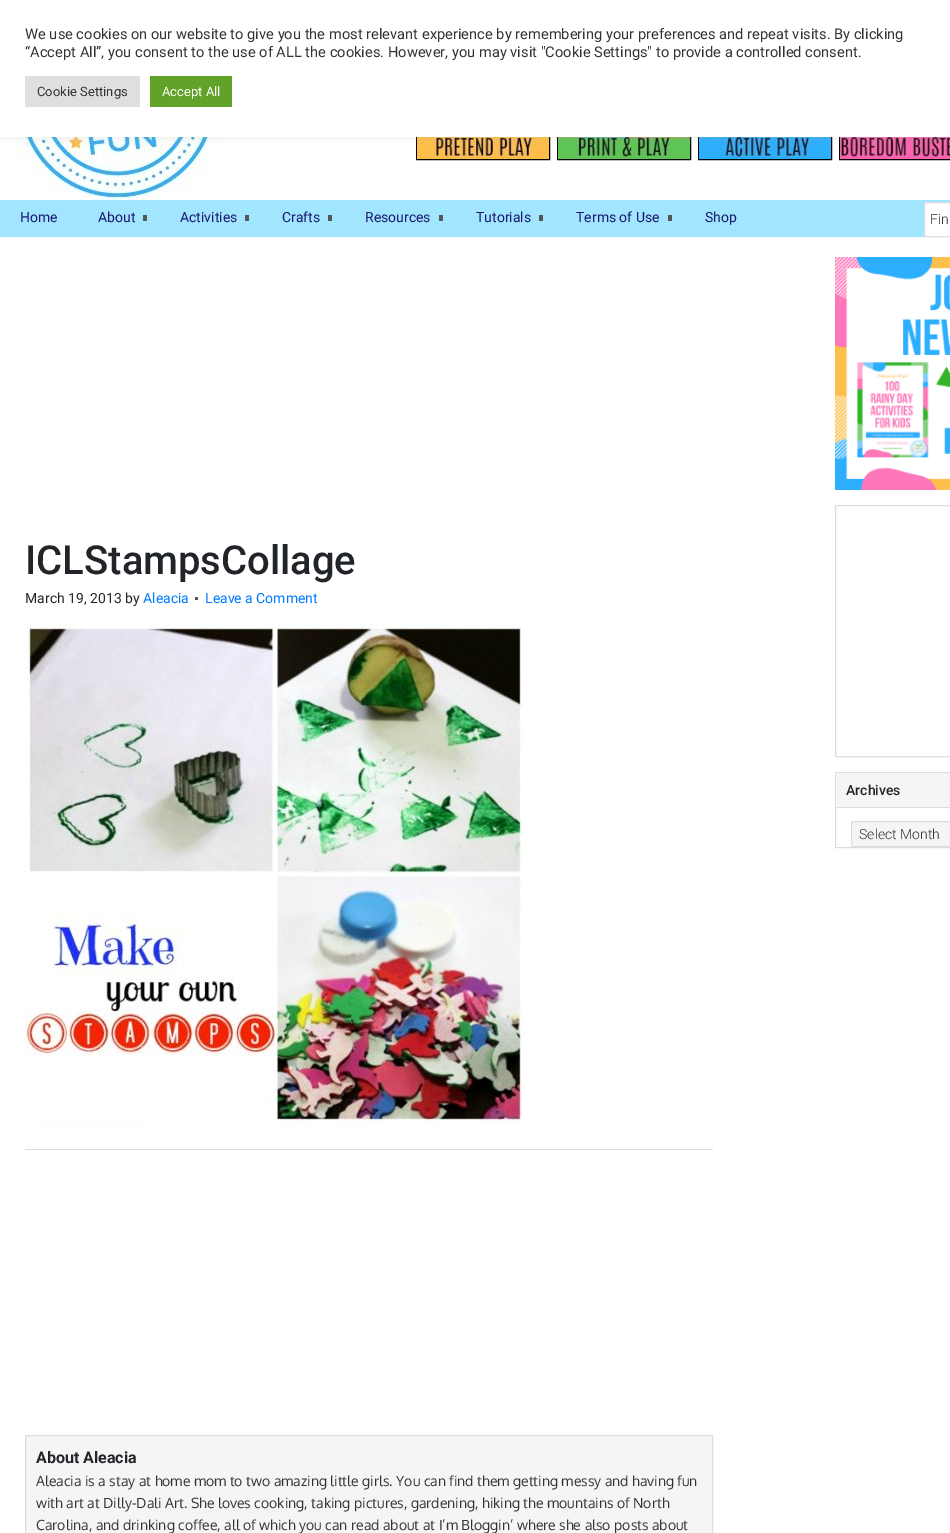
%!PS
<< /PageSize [950 1533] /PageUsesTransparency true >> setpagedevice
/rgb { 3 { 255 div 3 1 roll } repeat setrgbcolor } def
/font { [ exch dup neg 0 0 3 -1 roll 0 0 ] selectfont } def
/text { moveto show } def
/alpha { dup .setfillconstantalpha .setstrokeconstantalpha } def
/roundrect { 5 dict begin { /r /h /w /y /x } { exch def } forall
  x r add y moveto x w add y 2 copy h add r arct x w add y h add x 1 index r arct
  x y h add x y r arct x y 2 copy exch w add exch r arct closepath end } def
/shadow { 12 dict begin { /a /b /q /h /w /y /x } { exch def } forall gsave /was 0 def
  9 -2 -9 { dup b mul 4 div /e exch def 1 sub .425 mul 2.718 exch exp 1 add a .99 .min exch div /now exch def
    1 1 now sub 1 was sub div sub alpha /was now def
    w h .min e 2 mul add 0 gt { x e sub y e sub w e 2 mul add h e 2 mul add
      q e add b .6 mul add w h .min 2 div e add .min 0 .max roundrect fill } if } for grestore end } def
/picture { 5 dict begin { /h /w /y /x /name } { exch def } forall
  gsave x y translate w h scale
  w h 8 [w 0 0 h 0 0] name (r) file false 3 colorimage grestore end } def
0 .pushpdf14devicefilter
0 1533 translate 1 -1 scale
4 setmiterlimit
255 255 255 rgb
0 0 950 1533 rectfill
(img_01.rgb) 16 137 208 63 picture
0 0 0 rgb
416.5 26.5 133 133 rectstroke
(img_02.rgb) 417 137 132 22 picture
557.5 26.5 133 133 rectstroke
(img_03.rgb) 558 137 132 22 picture
698.5 26.5 133 133 rectstroke
(img_04.rgb) 699 137 132 22 picture
839.5 26.5 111 133 rectstroke
(img_05.rgb) 840 137 110 22 picture
172 171 171 rgb
0 -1 950 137 0 5 0.3 shadow
255 255 255 rgb
0 0 950 137 rectfill
222 223 224 rgb
25 76 115 31 rectfill
97 162 41 rgb
150 76 82 31 rectfill
162 229 254 rgb
0 200 950 37 rectfill
85 85 85 rgb
143 215 4 6 rectfill
245 215 4 6 rectfill
328 215 4 6 rectfill
439 215 4 6 rectfill
539 215 4 6 rectfill
668 215 4 6 rectfill
255 255 255 rgb
924.5 202.5 moveto 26 0 rlineto 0 34 rlineto -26 0 rlineto closepath gsave fill grestore
221 221 221 rgb
stroke
85 85 85 rgb
195 597 3 3 rectfill
(img_06.rgb) 25 624 500 500 picture
221 221 221 rgb
25 1149 688 1 rectfill
245 245 245 rgb
25.5 1435.5 moveto 687 0 rlineto 0 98 rlineto -687 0 rlineto closepath gsave fill grestore
221 221 221 rgb
stroke
(img_07.rgb) 835 257 115 233 picture
835.5 505.5 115 251 rectstroke
835.5 772.5 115 75 rectstroke
245 245 245 rgb
836 773 114 34 rectfill
221 221 221 rgb
836 807 114 1 rectfill
245 245 245 rgb
851.5 821.5 moveto 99 0 rlineto 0 25 rlineto -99 0 rlineto closepath gsave fill grestore
221 221 221 rgb
stroke
/Roboto-Regular 14.67 font
51 51 51 rgb
(We use cookies on our website to give you the most relevant experience by remembering your preferences and repeat visits. By clicking) 25 39 text
(“Accept All”, you consent to the use of ALL the cookies. However, you may visit "Cookie Settings" to provide a controlled consent.) 25 57 text
/Roboto-Regular 13 font
(Cookie Settings) 37 96 text
255 255 255 rgb
(Accept All) 162 96 text
/Roboto-Regular 14 font
25 25 112 rgb
(Home) 20 222 text
(About) 98 222 text
(Activities) 180 222 text
(Crafts) 282 222 text
(Resources) 365 222 text
(Tutorials) 476 222 text
(Terms of Use) 576 222 text
(Shop) 705 222 text
/Roboto-Light 14 font
51 51 51 rgb
(Fin) 930 224 text
/Roboto-Medium 40 font
33 37 41 rgb
(ICLStampsCollage) 25 574 text
/Roboto-Regular 14 font
(March 19, 2013 by) 25 603 text
0 123 255 rgb
(Aleacia) 143 603 text
(Leave a Comment) 205 603 text
/Roboto-Bold 16 font
33 37 41 rgb
(About Aleacia) 36 1463 text
/Oxygen-Regular 14 font
51 51 51 rgb
(Aleacia is a stay at home mom to two amazing little girls. You can find them getting messy and having fun) 36 1486 text
(with art at Dilly-Dali Art. She loves cooking, taking pictures, gardening, hiking the mountains of North) 36 1508 text
(Carolina, and drinking coffee, all of which you can read about at I’m Bloggin’ where she also posts about) 36 1530 text
/Roboto-Medium 14 font
33 37 41 rgb
(Archives) 846 795 text
/Roboto-Light 14 font
51 51 51 rgb
(Select Month) 859 839 text
.poppdf14devicefilter showpage
